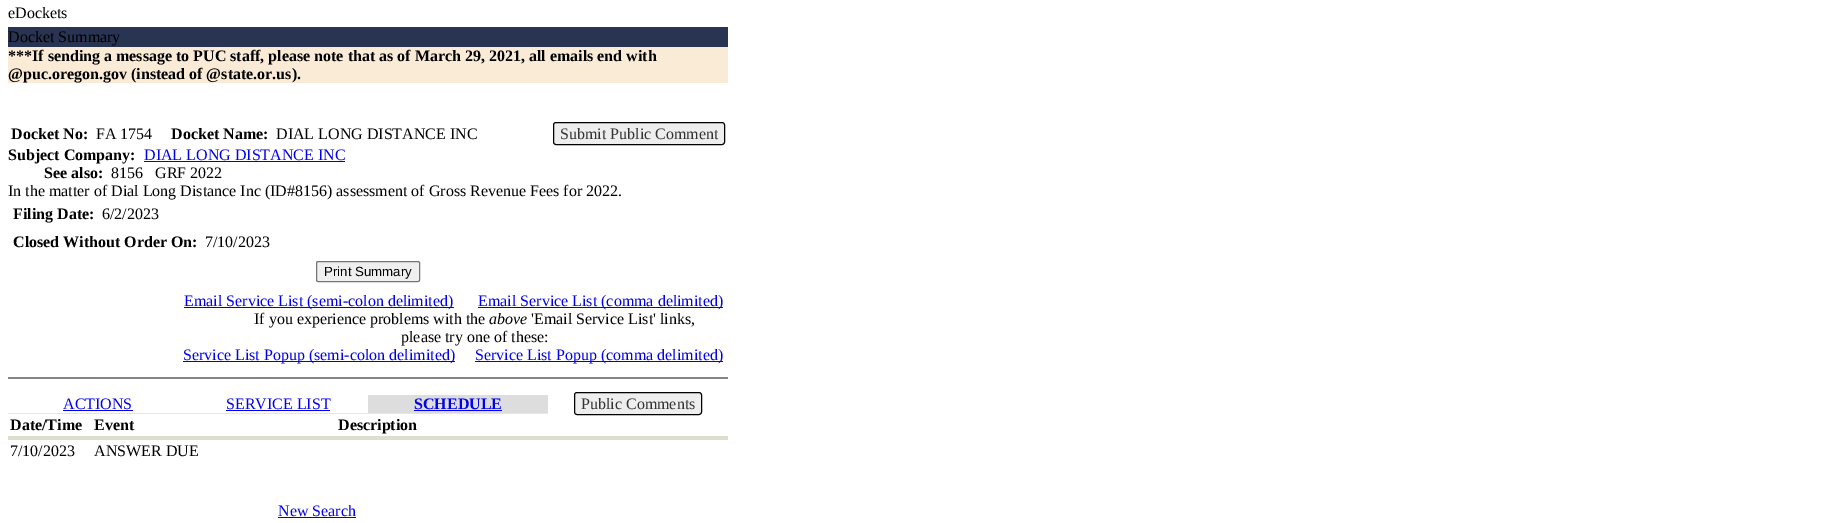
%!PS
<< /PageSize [1825 523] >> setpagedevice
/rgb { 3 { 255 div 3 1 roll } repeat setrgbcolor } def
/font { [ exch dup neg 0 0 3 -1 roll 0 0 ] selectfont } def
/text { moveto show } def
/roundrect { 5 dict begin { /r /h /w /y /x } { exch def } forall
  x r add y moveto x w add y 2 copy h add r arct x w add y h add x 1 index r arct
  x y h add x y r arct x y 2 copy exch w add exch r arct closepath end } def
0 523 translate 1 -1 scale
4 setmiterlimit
255 255 255 rgb
0 0 1825 523 rectfill
41 51 82 rgb
8 27 720 20 rectfill
250 235 215 rgb
8 47 720 36 rectfill
238 238 238 rgb
553.5 122.5 171 22 2.5 roundrect gsave fill grestore
0 0 0 rgb
stroke
0 0 238 rgb
144 161 201 1 rectfill
239 239 239 rgb
316.5 261.5 103 20 1.5 roundrect gsave fill grestore
118 118 118 rgb
stroke
0 0 238 rgb
184 307 270 1 rectfill
478 307 245 1 rectfill
183 361 272 1 rectfill
475 361 248 1 rectfill
133 133 133 rgb
8 377 720 2 rectfill
0 0 238 rgb
63 410 70 1 rectfill
226 410 104 1 rectfill
221 221 221 rgb
368 395 180 18 rectfill
0 0 238 rgb
414 410 88 1 rectfill
238 238 238 rgb
574.5 392.5 127 22 2.5 roundrect gsave fill grestore
0 0 0 rgb
stroke
229 229 229 rgb
8 413 540 1 rectfill
221 221 208 rgb
8 436 720 4 rectfill
0 0 238 rgb
278 517 78 1 rectfill
/LiberationSerif-Regular 16 font
0 0 0 rgb
(eDockets) 8 18 text
(Docket Summary) 8 42 text
/LiberationSerif-Bold 16 font
(***If sending a message to PUC staff, please note that as of March 29, 2021, all emails end with) 8 61 text
(@puc.oregon.gov \(instead of @state.or.us\).) 8 79 text
(Docket No:) 11 139 text
/LiberationSerif-Regular 16 font
(FA 1754) 96 139 text
/LiberationSerif-Bold 16 font
(Docket Name:) 171 139 text
/LiberationSerif-Regular 16 font
(DIAL LONG DISTANCE INC) 276 139 text
51 51 51 rgb
(Submit Public Comment) 560 139 text
/LiberationSerif-Bold 16 font
0 0 0 rgb
(Subject Company:) 8 160 text
/LiberationSerif-Regular 16 font
0 0 238 rgb
(DIAL LONG DISTANCE INC) 144 160 text
/LiberationSerif-Bold 16 font
0 0 0 rgb
(See also:) 44 178 text
/LiberationSerif-Regular 16 font
(8156   GRF 2022) 111 178 text
(In the matter of Dial Long Distance Inc \(ID#8156\) assessment of Gross Revenue Fees for 2022.) 8 196 text
/LiberationSerif-Bold 16 font
(Filing Date:) 13 219 text
/LiberationSerif-Regular 16 font
(6/2/2023) 102 219 text
/LiberationSerif-Bold 16 font
(Closed Without Order On:) 13 247 text
/LiberationSerif-Regular 16 font
(7/10/2023) 205 247 text
/LiberationSans-Regular 13.25 font
(Print Summary) 324 276 text
/LiberationSerif-Regular 16 font
0 0 238 rgb
(Email Service List \(semi-colon delimited\)) 184 306 text
(Email Service List \(comma delimited\)) 478 306 text
0 0 0 rgb
(If you experience problems with the) 254 324 text
/LiberationSerif-Italic 16 font
(above) 489 324 text
/LiberationSerif-Regular 16 font
('Email Service List' links,) 531 324 text
(please try one of these:) 401 342 text
0 0 238 rgb
(Service List Popup \(semi-colon delimited\)) 183 360 text
(Service List Popup \(comma delimited\)) 475 360 text
(ACTIONS) 63 409 text
(SERVICE LIST) 226 409 text
/LiberationSerif-Bold 16 font
(SCHEDULE) 414 409 text
/LiberationSerif-Regular 16 font
51 51 51 rgb
(Public Comments) 581 409 text
/LiberationSerif-Bold 16 font
0 0 0 rgb
(Date/Time) 10 430 text
(Event) 94 430 text
(Description) 338 430 text
/LiberationSerif-Regular 16 font
(7/10/2023) 10 456 text
(ANSWER DUE) 94 456 text
0 0 238 rgb
(New Search) 278 516 text
showpage
